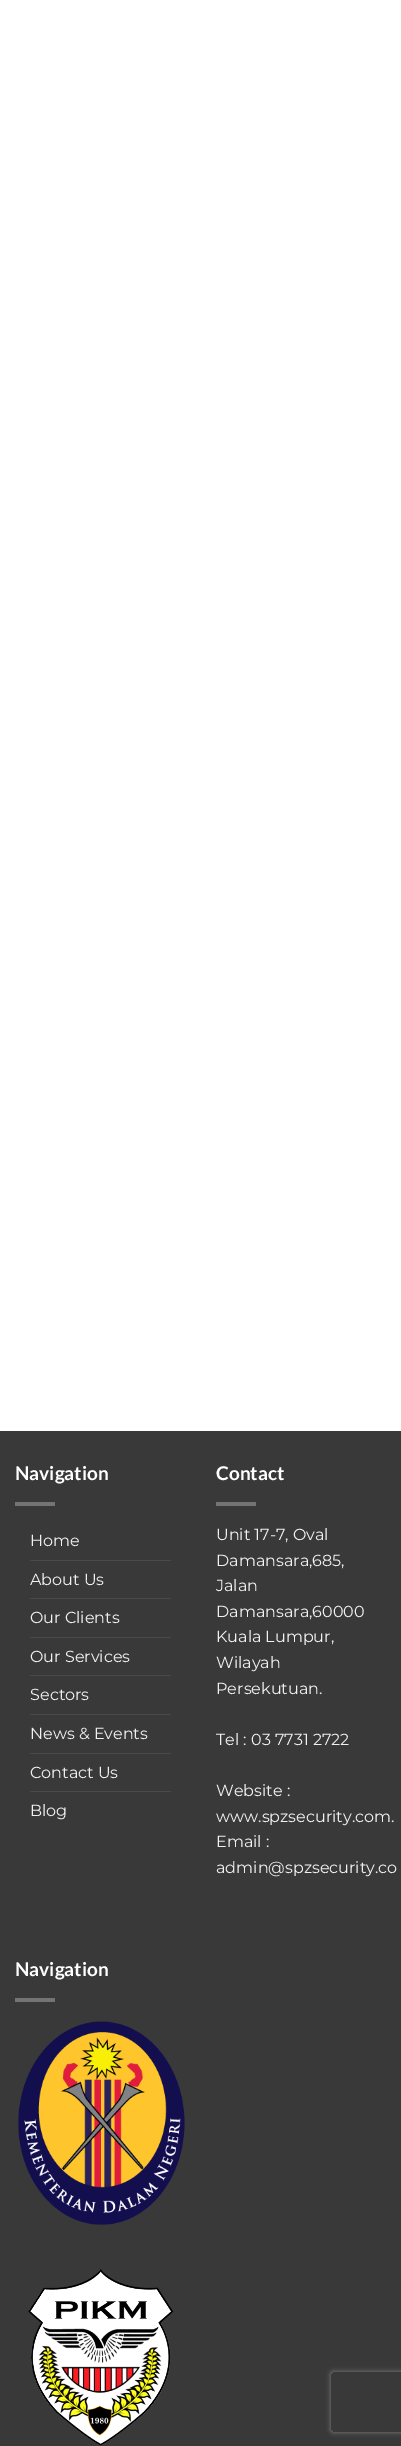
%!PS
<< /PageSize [401 2446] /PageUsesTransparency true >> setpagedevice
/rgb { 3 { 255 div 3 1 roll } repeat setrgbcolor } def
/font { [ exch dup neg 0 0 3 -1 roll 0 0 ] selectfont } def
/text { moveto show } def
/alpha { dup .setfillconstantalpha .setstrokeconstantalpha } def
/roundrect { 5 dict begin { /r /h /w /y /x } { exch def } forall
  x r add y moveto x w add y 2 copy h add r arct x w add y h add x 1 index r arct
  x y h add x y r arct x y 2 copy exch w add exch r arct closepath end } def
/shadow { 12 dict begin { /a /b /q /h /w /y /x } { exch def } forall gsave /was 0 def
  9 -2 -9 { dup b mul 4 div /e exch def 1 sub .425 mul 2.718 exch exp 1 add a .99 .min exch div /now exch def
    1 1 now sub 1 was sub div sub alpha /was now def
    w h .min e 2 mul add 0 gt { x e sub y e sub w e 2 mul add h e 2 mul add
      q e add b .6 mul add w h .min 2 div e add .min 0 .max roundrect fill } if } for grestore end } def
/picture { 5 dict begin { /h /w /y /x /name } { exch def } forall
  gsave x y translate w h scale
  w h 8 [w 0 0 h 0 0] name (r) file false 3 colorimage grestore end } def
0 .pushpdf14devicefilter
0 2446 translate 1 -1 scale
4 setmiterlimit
255 255 255 rgb
0 0 401 2446 rectfill
57 57 57 rgb
0 1431 401 1015 rectfill
116 116 116 rgb
15 1502 40 4 rectfill
73 73 73 rgb
30 1560 141 1 rectfill
30 1598 141 1 rectfill
30 1637 141 1 rectfill
30 1675 141 1 rectfill
30 1714 141 1 rectfill
30 1753 141 1 rectfill
30 1791 141 1 rectfill
116 116 116 rgb
216 1502 40 4 rectfill
15 1998 40 4 rectfill
(img_01.rgb) 18 2021 167 204 picture
(img_02.rgb) 28 2269 146 177 picture
gsave
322 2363 moveto 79 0 rlineto 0 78 rlineto -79 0 rlineto closepath 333 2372 moveto 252 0 rlineto 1 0 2 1 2 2 rcurveto 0 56 rlineto 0 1 -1 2 -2 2 rcurveto -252 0 rlineto -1 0 -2 -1 -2 -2 rcurveto 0 -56 rlineto 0 -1 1 -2 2 -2 rcurveto closepath eoclip newpath
128 128 128 rgb
331 2372 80 60 2 2.5 1 shadow
grestore
/Lato-Bold 19 font
255 255 255 rgb
(Navigation) 15 1480 text
/Montserrat-Thin 16 font
241 241 241 rgb
(Home) 30 1546 text
(About Us) 30 1585 text
(Our Clients) 30 1623 text
(Our Services) 30 1662 text
(Sectors) 30 1700 text
(News & Events) 30 1739 text
(Contact Us) 30 1778 text
(Blog) 30 1816 text
/Lato-Bold 19 font
255 255 255 rgb
(Contact) 216 1480 text
/Montserrat-Thin 16 font
241 241 241 rgb
(Unit 17-7, Oval) 216 1540 text
(Damansara,685,) 216 1566 text
(Jalan) 216 1591 text
(Damansara,60000) 216 1617 text
(Kuala Lumpur,) 216 1642 text
(Wilayah) 216 1668 text
(Persekutuan.) 216 1694 text
(Tel : 03 7731 2722) 216 1745 text
(Website :) 216 1796 text
(www.spzsecurity.com.) 216 1822 text
(Email :) 216 1847 text
(admin@spzsecurity.co) 216 1873 text
/Lato-Bold 19 font
255 255 255 rgb
(Navigation) 15 1976 text
.poppdf14devicefilter showpage
